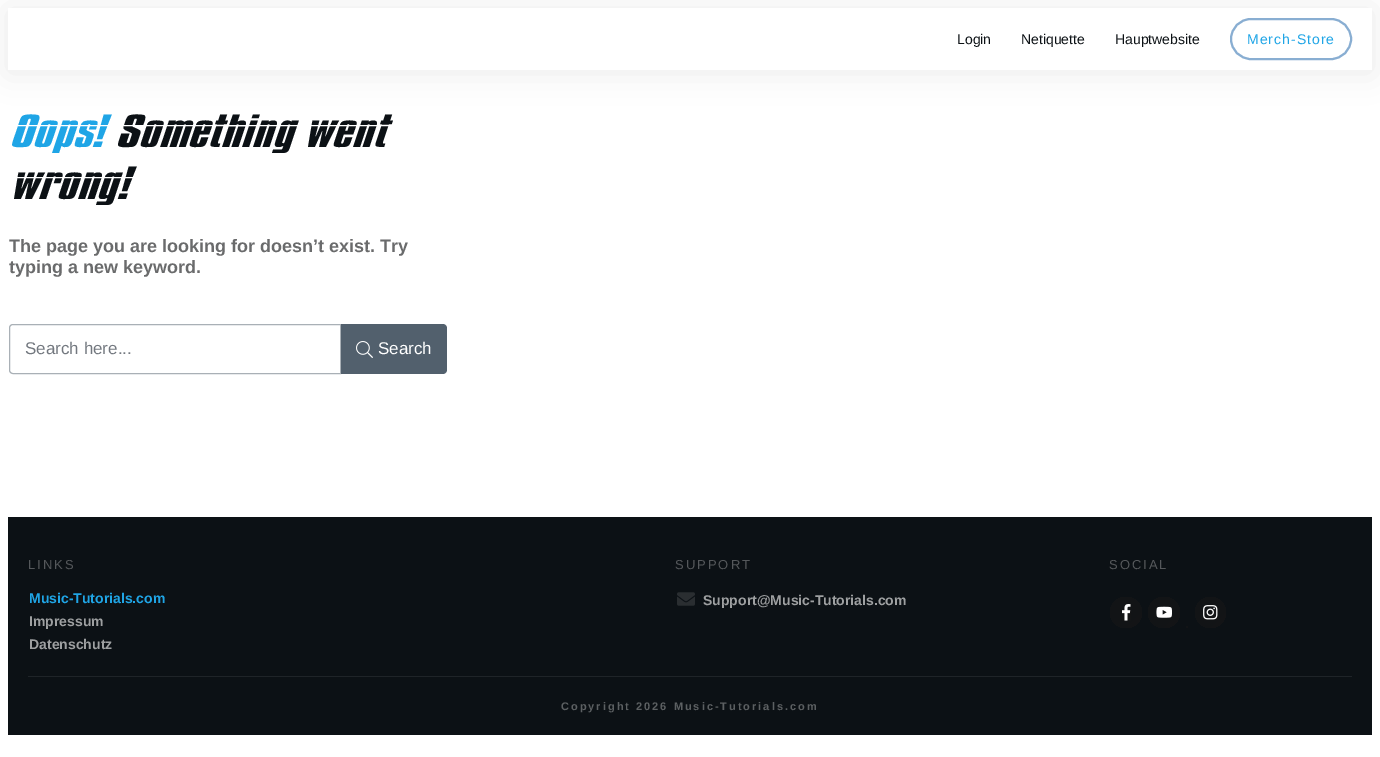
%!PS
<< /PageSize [1380 757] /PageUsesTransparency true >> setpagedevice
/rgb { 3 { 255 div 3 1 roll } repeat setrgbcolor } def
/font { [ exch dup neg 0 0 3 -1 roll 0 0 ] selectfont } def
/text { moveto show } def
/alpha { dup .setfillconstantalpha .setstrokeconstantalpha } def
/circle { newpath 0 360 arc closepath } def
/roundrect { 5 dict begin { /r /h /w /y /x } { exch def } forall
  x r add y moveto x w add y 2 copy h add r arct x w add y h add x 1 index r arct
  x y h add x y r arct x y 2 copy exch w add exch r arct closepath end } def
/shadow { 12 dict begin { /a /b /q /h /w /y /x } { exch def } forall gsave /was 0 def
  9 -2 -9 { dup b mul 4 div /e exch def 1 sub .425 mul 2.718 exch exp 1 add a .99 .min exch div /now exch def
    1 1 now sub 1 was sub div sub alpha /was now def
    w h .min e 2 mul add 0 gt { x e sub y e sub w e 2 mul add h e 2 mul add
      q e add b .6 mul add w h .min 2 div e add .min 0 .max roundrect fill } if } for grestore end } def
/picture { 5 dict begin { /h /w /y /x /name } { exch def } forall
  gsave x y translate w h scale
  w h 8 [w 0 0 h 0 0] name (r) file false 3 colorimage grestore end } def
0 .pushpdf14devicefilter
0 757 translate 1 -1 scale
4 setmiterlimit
255 255 255 rgb
0 0 1380 757 rectfill
gsave
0 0 moveto 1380 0 rlineto 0 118 rlineto -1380 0 rlineto closepath 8 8 moveto 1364 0 rlineto 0 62 rlineto -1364 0 rlineto closepath eoclip newpath
0 0 0 rgb
8 10 1364 62 0 15 0.08 shadow
grestore
137 174 210 rgb
2 setlinewidth
1231 19 120 40 20 roundrect stroke
169 176 182 rgb
1 setlinewidth
13 324.5 moveto 327.5 0 rlineto 0 49 rlineto -327.5 0 rlineto -2 0 -3.5 -1.5 -3.5 -3.5 rcurveto 0 -42 rlineto 0 -2 1.5 -3.5 3.5 -3.5 rcurveto closepath stroke
82 96 109 rgb
341 324 moveto 102 0 rlineto 2 0 4 2 4 4 rcurveto 0 42 rlineto 0 2 -2 4 -4 4 rcurveto -102 0 rlineto closepath fill
(img_01.rgb) 356 341 17 17 picture
12 17 21 rgb
8 517 1364 218 rectfill
31 36 40 rgb
28 676 1324 1 rectfill
(img_02.rgb) 677 592 18 14 picture
gsave 1110 597 32 31 15.5 roundrect clip newpath
<< /ShadingType 2 /ColorSpace /DeviceRGB /Coords [1111 597 1141 628] /Extend [true true] /Function << /FunctionType 3 /Domain [0 1] /Functions [<< /FunctionType 2 /Domain [0 1] /C0 [0.071 0.078 0.086] /C1 [0.071 0.078 0.086] /N 1 >> << /FunctionType 2 /Domain [0 1] /C0 [0.078 0.082 0.086] /C1 [0.078 0.082 0.086] /N 1 >>] /Bounds [0.5] /Encode [0 1 0 1] >> >> shfill grestore
(img_03.rgb) 1122 604 9 17 picture
gsave 1148 597 32 31 15.5 roundrect clip newpath
<< /ShadingType 2 /ColorSpace /DeviceRGB /Coords [1149 597 1179 628] /Extend [true true] /Function << /FunctionType 3 /Domain [0 1] /Functions [<< /FunctionType 2 /Domain [0 1] /C0 [0.071 0.078 0.086] /C1 [0.071 0.078 0.086] /N 1 >> << /FunctionType 2 /Domain [0 1] /C0 [0.078 0.082 0.086] /C1 [0.078 0.082 0.086] /N 1 >>] /Bounds [0.5] /Encode [0 1 0 1] >> >> shfill grestore
(img_04.rgb) 1156 606 16 12 picture
gsave 1187 627 1 circle clip newpath
<< /ShadingType 2 /ColorSpace /DeviceRGB /Coords [1186 626 1188 628] /Extend [true true] /Function << /FunctionType 3 /Domain [0 1] /Functions [<< /FunctionType 2 /Domain [0 1] /C0 [0.071 0.078 0.086] /C1 [0.071 0.078 0.086] /N 1 >> << /FunctionType 2 /Domain [0 1] /C0 [0.078 0.082 0.086] /C1 [0.078 0.082 0.086] /N 1 >>] /Bounds [0.5] /Encode [0 1 0 1] >> >> shfill grestore
gsave 1210.5 612.5 15.5 circle clip newpath
<< /ShadingType 2 /ColorSpace /DeviceRGB /Coords [1195 597 1226 628] /Extend [true true] /Function << /FunctionType 3 /Domain [0 1] /Functions [<< /FunctionType 2 /Domain [0 1] /C0 [0.071 0.078 0.086] /C1 [0.071 0.078 0.086] /N 1 >> << /FunctionType 2 /Domain [0 1] /C0 [0.078 0.082 0.086] /C1 [0.078 0.082 0.086] /N 1 >>] /Bounds [0.5] /Encode [0 1 0 1] >> >> shfill grestore
(img_05.rgb) 1203 605 15 15 picture
/LiberationSans-Regular 14 font
12 17 21 rgb
(Login) 957 44 text
(Netiquette) 1021 44 text
(Hauptwebsite) 1115 44 text
31 165 230 rgb
1247 44 moveto 1 0 (Merch-Store) ashow
/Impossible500-Regular 40 font
(Oops!) 9 147 text
12 17 21 rgb
(Something went) 115 147 text
(wrong!) 9 199 text
/LiberationSans-Bold 18 font
106 107 108 rgb
(The page you are looking for doesn’t exist. Try) 9 252 text
(typing a new keyword.) 9 273 text
/LiberationSans-Regular 17 font
115 120 127 rgb
(Search here...) 25 354 text
255 255 255 rgb
(Search) 378 354 text
/LiberationSans-Regular 13 font
85 88 91 rgb
28 569 moveto 2 0 (LINKS) ashow
/LiberationSans-Bold 14 font
31 165 230 rgb
(Music-Tutorials.com) 29 603 text
158 160 161 rgb
(Impressum) 29 626 text
(Datenschutz) 29 649 text
/LiberationSans-Regular 13 font
85 88 91 rgb
675 569 moveto 2 0 (SUPPORT) ashow
/LiberationSans-Bold 14 font
158 160 161 rgb
(Support@Music-Tutorials.com) 703 605 text
/LiberationSans-Regular 13 font
85 88 91 rgb
1109 569 moveto 2 0 (SOCIAL) ashow
/LiberationSans-Bold 11 font
92 96 98 rgb
561 710 moveto 2 0 (Copyright 2026 Music-Tutorials.com) ashow
.poppdf14devicefilter showpage
